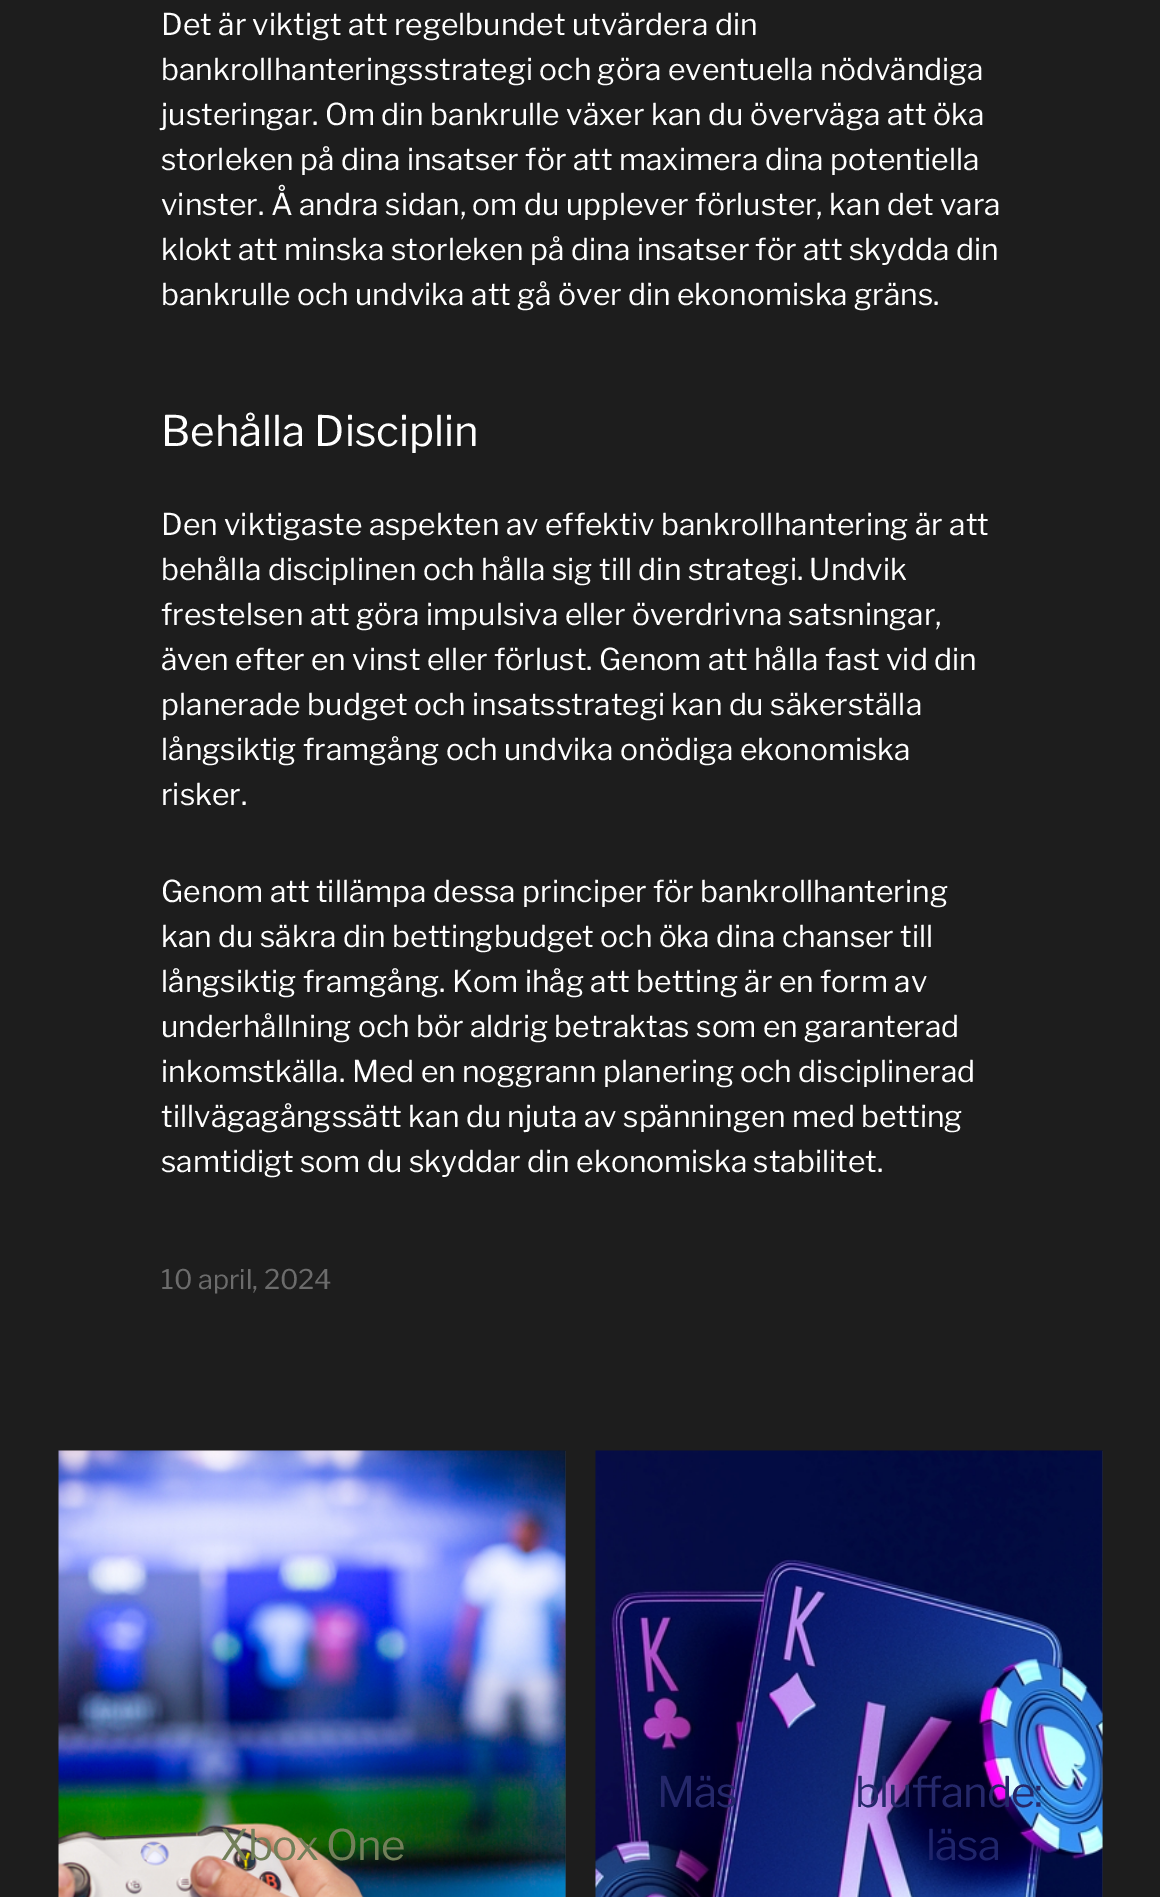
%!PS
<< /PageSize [1160 1897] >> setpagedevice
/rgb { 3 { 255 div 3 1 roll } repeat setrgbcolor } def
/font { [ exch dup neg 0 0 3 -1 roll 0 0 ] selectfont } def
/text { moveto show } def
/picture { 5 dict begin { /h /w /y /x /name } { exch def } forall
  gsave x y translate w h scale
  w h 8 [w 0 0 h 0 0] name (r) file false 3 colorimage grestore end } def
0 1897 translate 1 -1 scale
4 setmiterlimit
29 29 29 rgb
0 0 1160 1897 rectfill
52 52 52 rgb
565 1451 1 446 rectfill
(img_01.rgb) 58 1450 508 447 picture
1102 1451 1 446 rectfill
(img_02.rgb) 595 1450 508 447 picture
/LibreFranklin-Regular 30 font
255 255 255 rgb
(Det är viktigt att regelbundet utvärdera din) 161 35 text
(bankrollhanteringsstrategi och göra eventuella nödvändiga) 161 80 text
(justeringar. Om din bankrulle växer kan du överväga att öka) 161 125 text
(storleken på dina insatser för att maximera dina potentiella) 161 170 text
(vinster. Å andra sidan, om du upplever förluster, kan det vara) 161 215 text
(klokt att minska storleken på dina insatser för att skydda din) 161 260 text
(bankrulle och undvika att gå över din ekonomiska gräns.) 161 305 text
/LibreFranklin-Regular 42 font
(Behålla Disciplin) 161 446 text
/LibreFranklin-Regular 30 font
(Den viktigaste aspekten av effektiv bankrollhantering är att) 161 535 text
(behålla disciplinen och hålla sig till din strategi. Undvik) 161 580 text
(frestelsen att göra impulsiva eller överdrivna satsningar,) 161 625 text
(även efter en vinst eller förlust. Genom att hålla fast vid din) 161 670 text
(planerade budget och insatsstrategi kan du säkerställa) 161 715 text
(långsiktig framgång och undvika onödiga ekonomiska) 161 760 text
(risker.) 161 805 text
(Genom att tillämpa dessa principer för bankrollhantering) 161 902 text
(kan du säkra din bettingbudget och öka dina chanser till) 161 947 text
(långsiktig framgång. Kom ihåg att betting är en form av) 161 992 text
(underhållning och bör aldrig betraktas som en garanterad) 161 1037 text
(inkomstkälla. Med en noggrann planering och disciplinerad) 161 1082 text
(tillvägagångssätt kan du njuta av spänningen med betting) 161 1127 text
(samtidigt som du skyddar din ekonomiska stabilitet.) 161 1172 text
/LibreFranklin-Regular 27 font
108 108 108 rgb
(10 april, 2024) 161 1289 text
/LibreFranklin-Regular 42 font
114 127 89 rgb
220 1860 moveto -1 0 (Xbox One) ashow
37 40 106 rgb
657 1807 moveto -1 0 (Mäs) ashow
855 1807 moveto -1 0 (bluffande:) ashow
31 37 107 rgb
926 1860 moveto -1 0 (läsa) ashow
showpage
